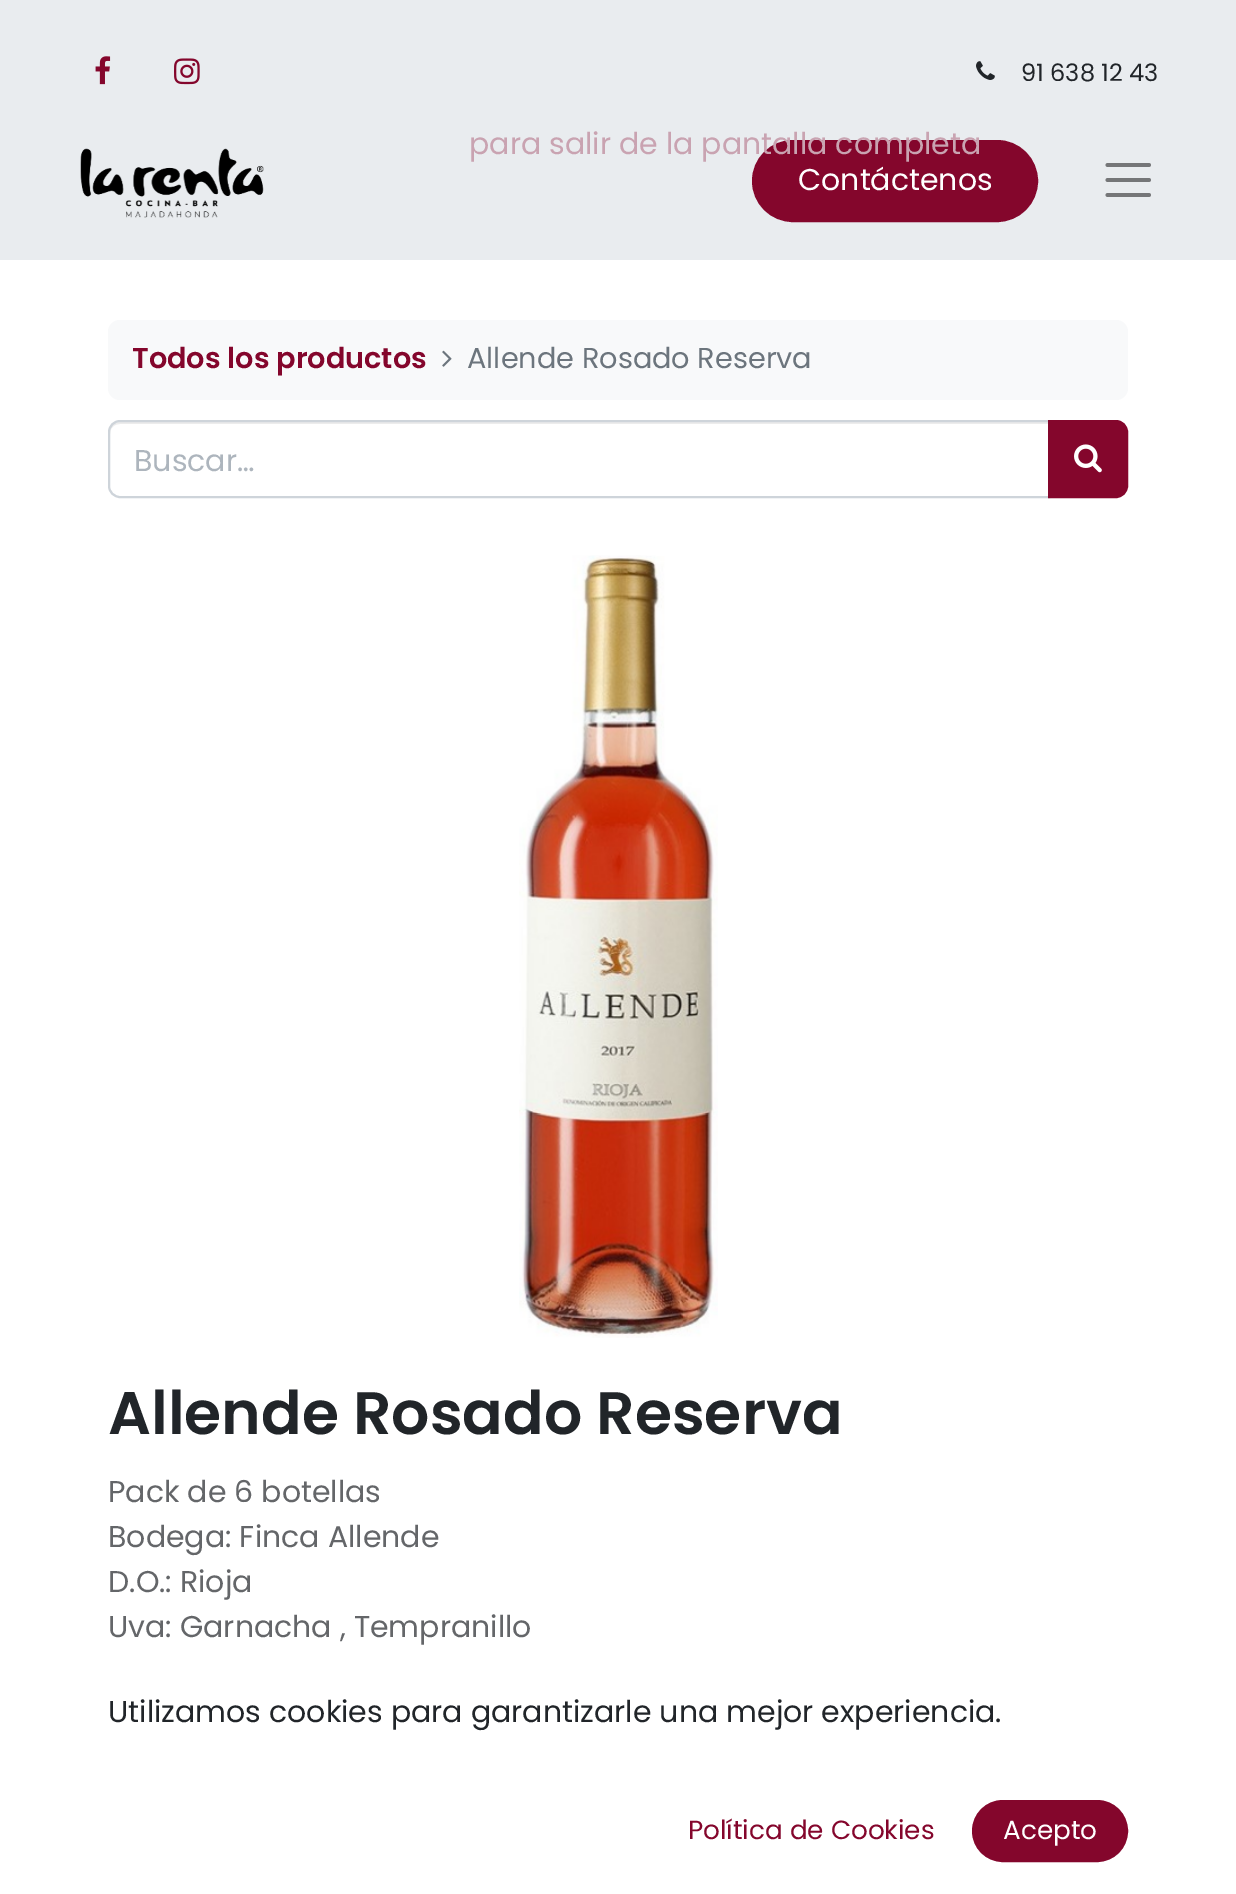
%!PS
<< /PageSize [1236 1894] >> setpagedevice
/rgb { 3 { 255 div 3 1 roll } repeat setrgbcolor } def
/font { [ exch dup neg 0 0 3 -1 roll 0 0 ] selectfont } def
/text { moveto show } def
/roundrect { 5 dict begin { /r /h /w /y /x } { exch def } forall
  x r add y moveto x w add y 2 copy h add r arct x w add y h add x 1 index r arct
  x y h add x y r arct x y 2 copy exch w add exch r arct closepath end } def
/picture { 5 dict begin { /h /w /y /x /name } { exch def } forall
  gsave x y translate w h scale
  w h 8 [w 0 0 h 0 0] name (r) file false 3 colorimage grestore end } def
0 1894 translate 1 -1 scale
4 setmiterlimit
255 255 255 rgb
0 0 1236 1894 rectfill
233 236 239 rgb
0 0 1236 260 rectfill
(img_01.rgb) 95 56 16 29 picture
(img_02.rgb) 174 58 26 27 picture
(img_03.rgb) 976 61 19 19 picture
(img_04.rgb) 80 148 184 70 picture
132 6 44 rgb
753 141 284 80 40 roundrect gsave fill grestore
2 setlinewidth
stroke
117 118 120 rgb
3.8 setlinewidth
1 setlinecap
1107.5 165 moveto 41.5 0 rlineto 1107.5 180 moveto 41.5 0 rlineto 1107.5 195 moveto 41.5 0 rlineto stroke
248 249 250 rgb
108 320 1020 80 12 roundrect fill
(img_05.rgb) 442 350 10 17 picture
236 236 236 rgb
120 424 moveto 928 0 rlineto 0 -2 rlineto -928 0 rlineto -6 0 -10 4 -10 10 rcurveto 0 2 rlineto 0 -6 4 -10 10 -10 rcurveto closepath fill
206 212 218 rgb
2 setlinewidth
0 setlinecap
120 421 moveto 929 0 rlineto 0 76 rlineto -929 0 rlineto -6 0 -11 -5 -11 -11 rcurveto 0 -54 rlineto 0 -6 5 -11 11 -11 rcurveto closepath stroke
132 6 44 rgb
1049 421 moveto 67 0 rlineto 6 0 11 5 11 11 rcurveto 0 54 rlineto 0 6 -5 11 -11 11 rcurveto -67 0 rlineto closepath gsave fill grestore
stroke
(img_06.rgb) 1074 444 28 29 picture
(img_07.rgb) 519 555 199 783 picture
973 1801 154 60 30 roundrect gsave fill grestore
stroke
/Poppins-Regular 24 font
33 37 41 rgb
(91 638 12 43) 1021 81 text
/Poppins-Regular 30 font
255 255 255 rgb
(Contáctenos) 798 190 text
/Poppins-SemiBold 28.75 font
132 6 44 rgb
(Todos los productos) 132 368 text
/Poppins-Regular 28.75 font
108 117 125 rgb
(Allende Rosado Reserva) 467 368 text
/Poppins-Regular 30 font
173 181 189 rgb
(Buscar…) 134 471 text
/Poppins-SemiBold 60 font
33 37 41 rgb
(Allende Rosado Reserva) 108 1434 text
/Poppins-Regular 30 font
100 102 105 rgb
(Pack de 6 botellas) 108 1502 text
(Bodega: Finca Allende) 108 1547 text
(D.O.: Rioja) 108 1592 text
(Uva: Garnacha , Tempranillo) 108 1637 text
33 37 41 rgb
(Utilizamos cookies para garantizarle una mejor experiencia.) 108 1722 text
/Poppins-Regular 26.25 font
132 6 44 rgb
(Política de Cookies) 688 1839 text
255 255 255 rgb
(Acepto) 1003 1839 text
/Poppins-Regular 30 font
201 163 177 rgb
(para salir de la pantalla completa) 469 154 text
showpage
